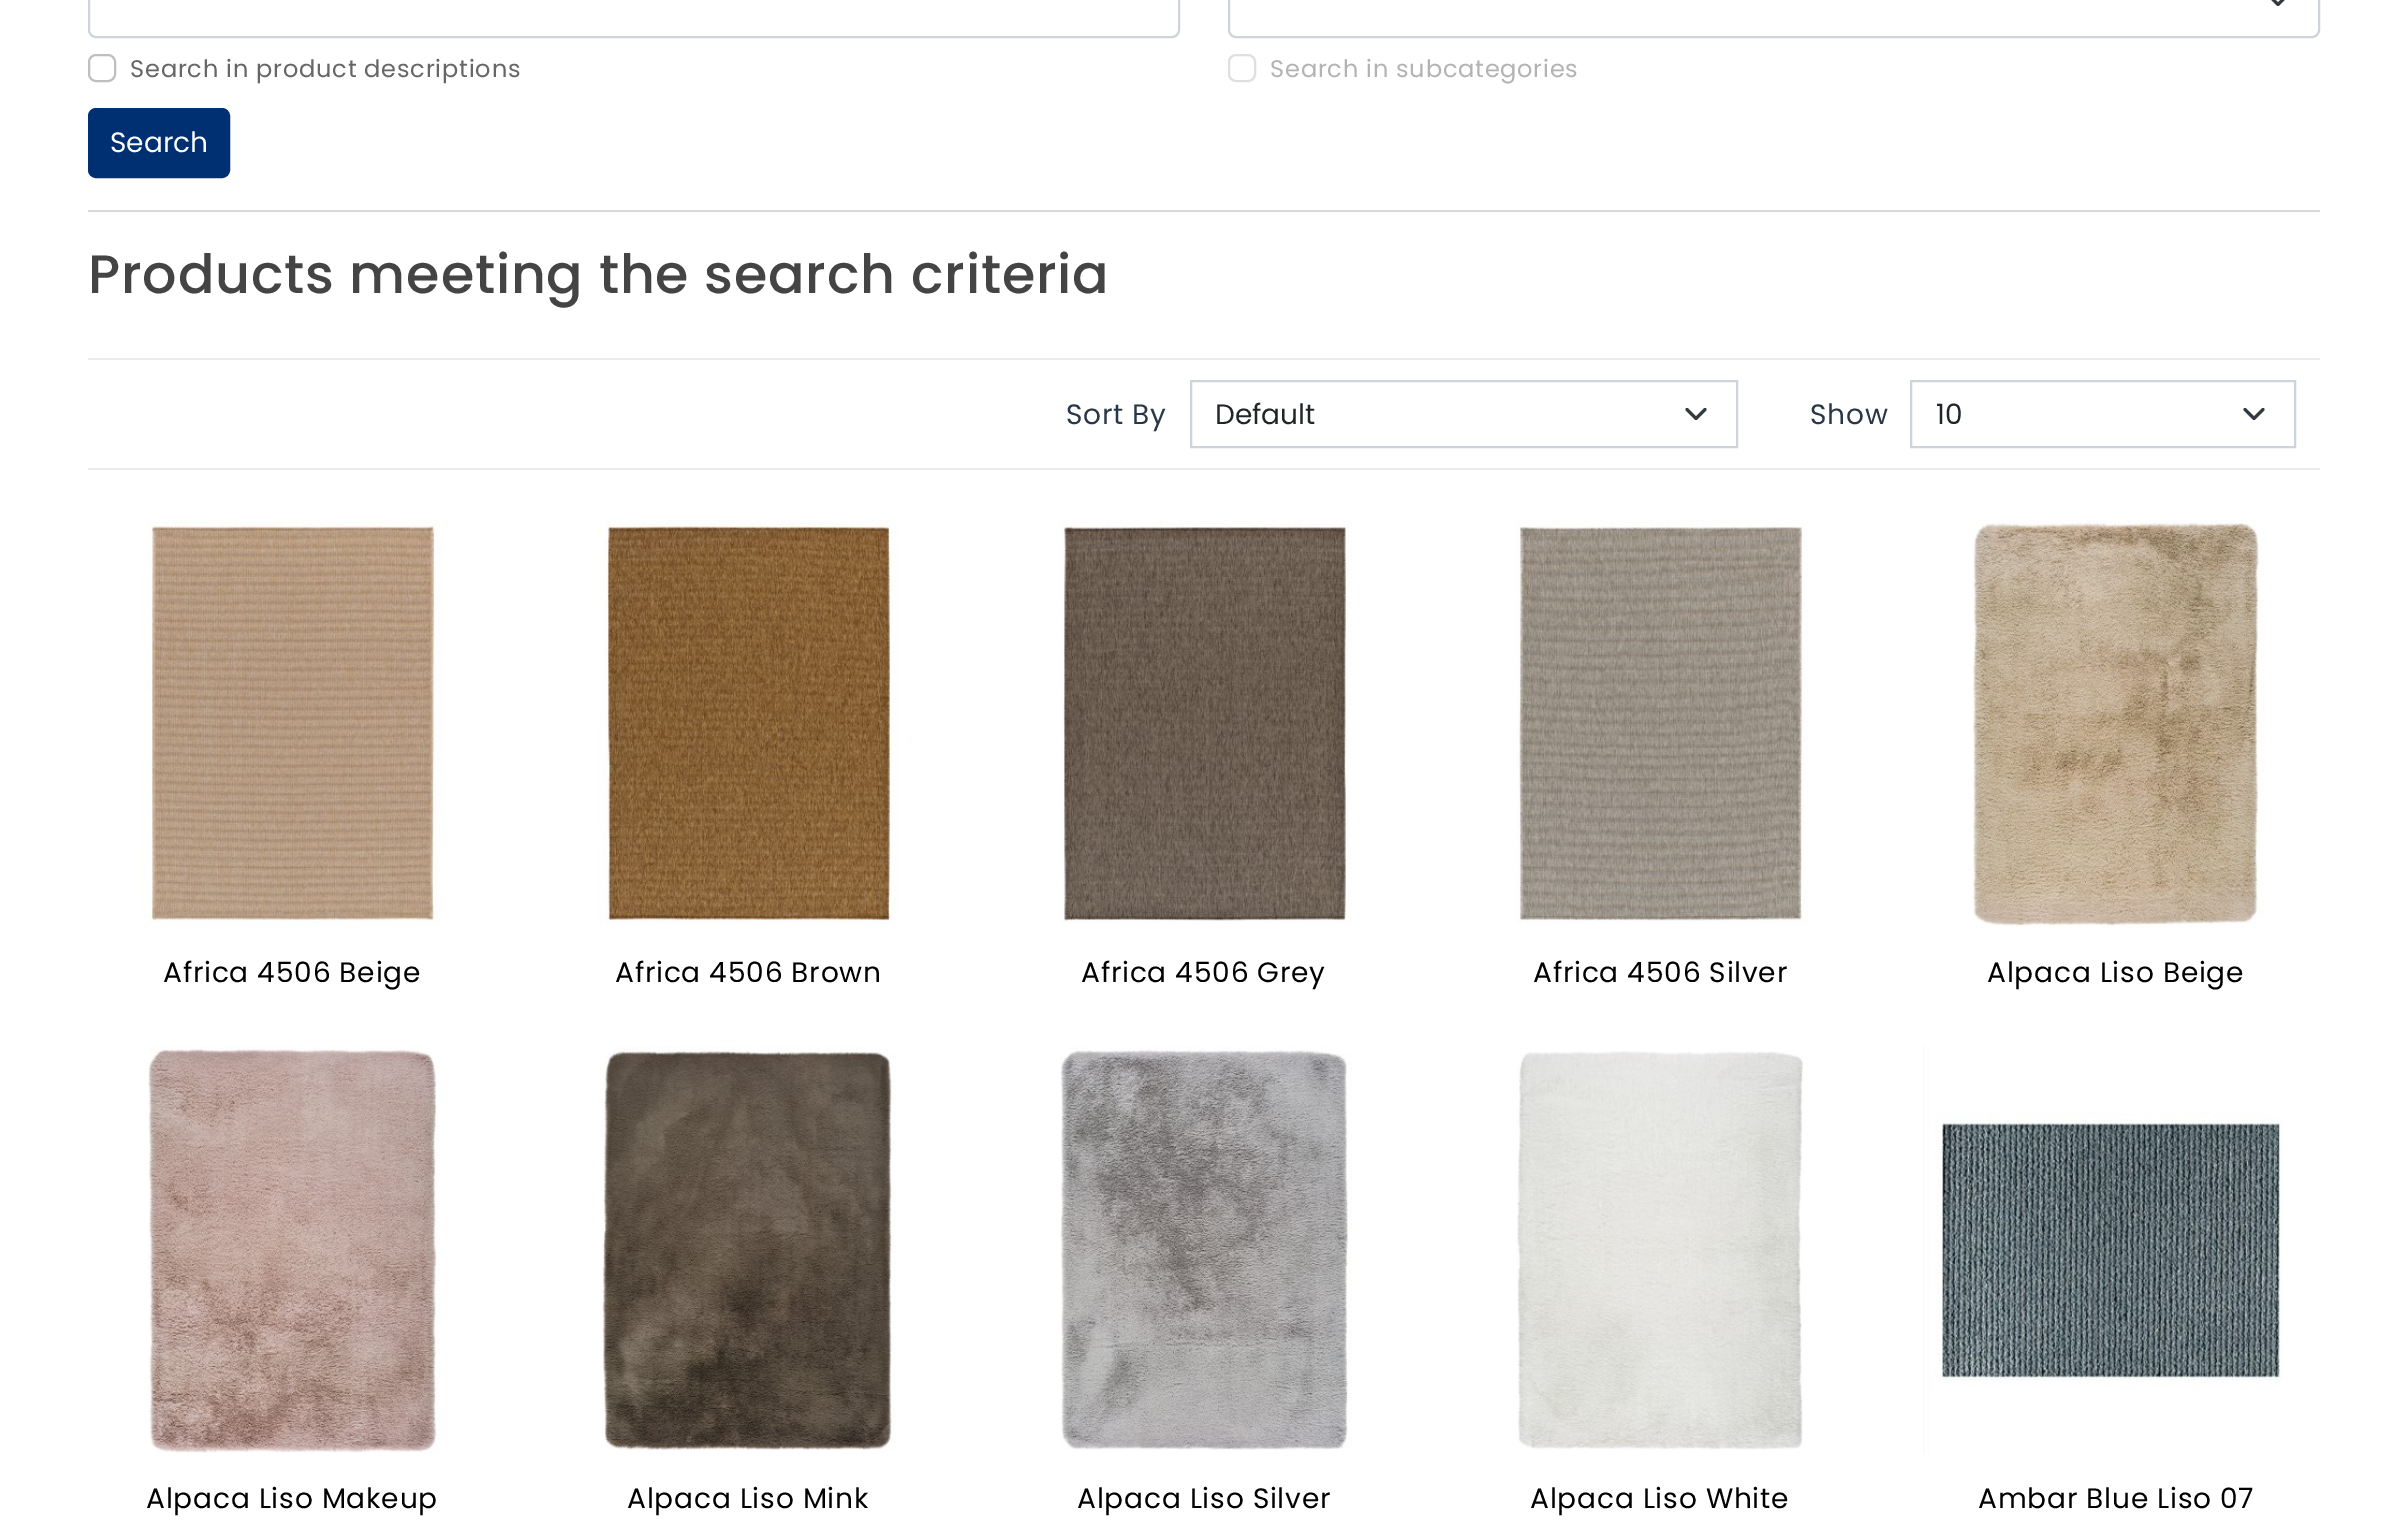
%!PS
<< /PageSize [2408 1524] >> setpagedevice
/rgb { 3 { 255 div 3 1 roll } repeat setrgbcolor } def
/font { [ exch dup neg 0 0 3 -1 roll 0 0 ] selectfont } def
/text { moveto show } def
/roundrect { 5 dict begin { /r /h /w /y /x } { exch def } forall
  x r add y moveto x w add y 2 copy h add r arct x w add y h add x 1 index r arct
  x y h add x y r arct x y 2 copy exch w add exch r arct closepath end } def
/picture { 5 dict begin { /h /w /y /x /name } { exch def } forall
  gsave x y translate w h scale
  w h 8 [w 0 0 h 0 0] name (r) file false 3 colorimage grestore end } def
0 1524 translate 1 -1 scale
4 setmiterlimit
255 255 255 rgb
0 0 2408 1524 rectfill
206 212 218 rgb
2 setlinewidth
89 -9 1090 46 7 roundrect stroke
191 191 191 rgb
89 55 26 26 7 roundrect stroke
52 58 64 rgb
3 setlinewidth
1 setlinecap
1 setlinejoin
2269 -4.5 moveto 9 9 rlineto 9 -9 rlineto stroke
206 212 218 rgb
2 setlinewidth
0 setlinecap
0 setlinejoin
1229 -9 1090 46 7 roundrect stroke
223 223 223 rgb
1229 55 26 26 7 roundrect stroke
0 48 114 rgb
89 109 140 68 7 roundrect gsave fill grestore
stroke
217 217 217 rgb
88 210 2232 2 rectfill
235 235 235 rgb
88 358 2232 2 rectfill
88 468 2232 2 rectfill
52 58 64 rgb
3 setlinewidth
1 setlinecap
1 setlinejoin
1687 409.5 moveto 9 9 rlineto 9 -9 rlineto stroke
206 212 218 rgb
2 setlinewidth
0 setlinecap
0 setlinejoin
1191 381 546 66 rectstroke
52 58 64 rgb
3 setlinewidth
1 setlinecap
1 setlinejoin
2245 409.5 moveto 9 9 rlineto 9 -9 rlineto stroke
206 212 218 rgb
2 setlinewidth
0 setlinecap
0 setlinejoin
1911 381 384 66 rectstroke
(img_01.rgb) 142 520 303 408 picture
(img_02.rgb) 598 520 302 404 picture
(img_03.rgb) 1060 520 292 404 picture
(img_04.rgb) 1516 520 292 404 picture
(img_05.rgb) 1972 520 292 407 picture
(img_06.rgb) 148 1046 292 407 picture
(img_07.rgb) 601 1046 295 405 picture
(img_08.rgb) 1060 1046 292 404 picture
(img_09.rgb) 1516 1051 288 399 picture
(img_10.rgb) 1923 1046 360 408 picture
/Poppins-Regular 24 font
102 102 102 rgb
130 77 moveto 0.8 0 (Search in product descriptions) ashow
179 179 179 rgb
1270 77 moveto 0.8 0 (Search in subcategories) ashow
/Poppins-Regular 28 font
255 255 255 rgb
(Search) 110 152 text
/Poppins-Medium 54 font
68 68 68 rgb
88 293 moveto 0.8 0 (Products meeting the search criteria) ashow
/Poppins-Regular 28 font
42 55 70 rgb
1066 424 moveto 0.8 0 (Sort By) ashow
33 37 41 rgb
(Default) 1215 424 text
42 55 70 rgb
1810 424 moveto 0.8 0 (Show) ashow
33 37 41 rgb
(10) 1936 424 text
0 0 0 rgb
163 982 moveto 0.8 0 (Africa 4506 Beige) ashow
615 982 moveto 0.8 0 (Africa 4506 Brown) ashow
1081 982 moveto 0.8 0 (Africa 4506 Grey) ashow
1533 982 moveto 0.8 0 (Africa 4506 Silver) ashow
1987 982 moveto 0.8 0 (Alpaca Liso Beige) ashow
146 1508 moveto 0.8 0 (Alpaca Liso Makeup) ashow
627 1508 moveto 0.8 0 (Alpaca Liso Mink) ashow
1077 1508 moveto 0.8 0 (Alpaca Liso Silver) ashow
1530 1508 moveto 0.8 0 (Alpaca Liso White) ashow
1978 1508 moveto 0.8 0 (Ambar Blue Liso 07) ashow
showpage
